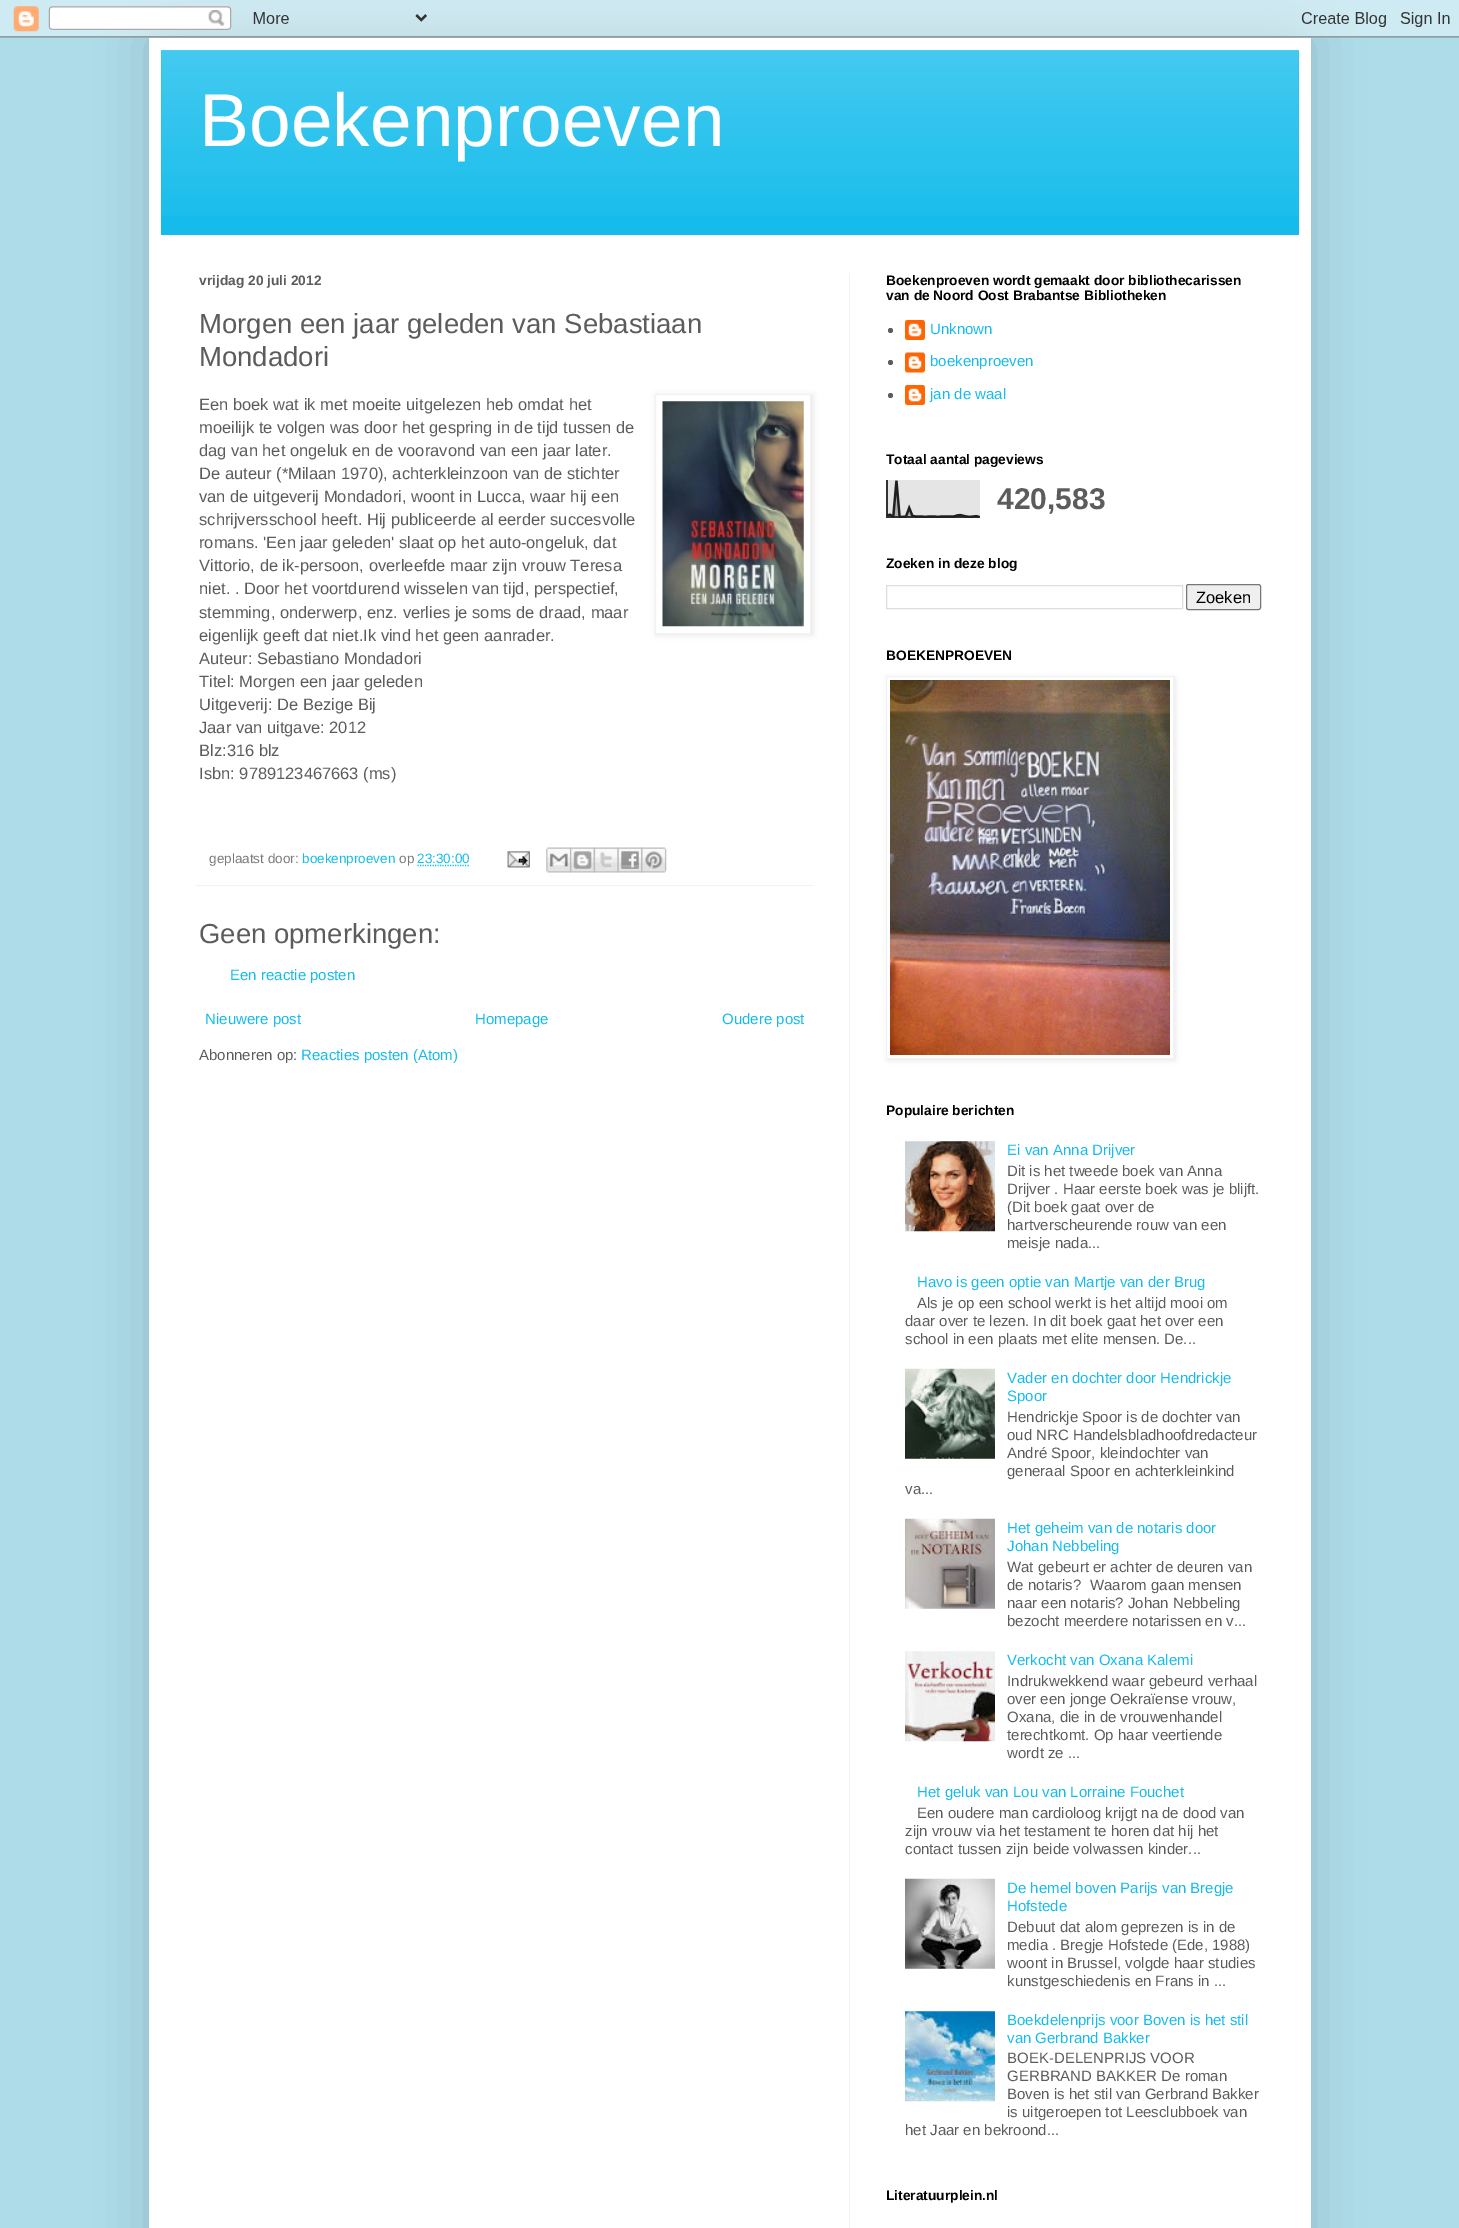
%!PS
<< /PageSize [1459 2228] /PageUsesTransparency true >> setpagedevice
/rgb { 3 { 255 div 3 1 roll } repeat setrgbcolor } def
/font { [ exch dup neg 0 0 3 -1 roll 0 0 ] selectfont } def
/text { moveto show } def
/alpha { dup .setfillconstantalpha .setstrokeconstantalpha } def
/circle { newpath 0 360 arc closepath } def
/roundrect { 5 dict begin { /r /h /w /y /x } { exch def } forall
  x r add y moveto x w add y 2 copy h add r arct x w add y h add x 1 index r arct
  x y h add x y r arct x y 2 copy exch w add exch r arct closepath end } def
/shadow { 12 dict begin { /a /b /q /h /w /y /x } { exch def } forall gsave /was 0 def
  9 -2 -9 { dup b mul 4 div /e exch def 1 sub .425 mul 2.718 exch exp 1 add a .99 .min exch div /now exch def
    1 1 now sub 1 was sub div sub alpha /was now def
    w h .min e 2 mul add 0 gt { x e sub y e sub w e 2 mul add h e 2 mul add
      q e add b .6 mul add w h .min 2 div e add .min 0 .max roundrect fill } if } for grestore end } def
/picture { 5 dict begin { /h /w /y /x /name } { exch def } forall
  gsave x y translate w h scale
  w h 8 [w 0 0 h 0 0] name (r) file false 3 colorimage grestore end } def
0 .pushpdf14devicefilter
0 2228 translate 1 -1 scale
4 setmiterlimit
174 220 233 rgb
0 0 1459 2228 rectfill
0 0 0 rgb
149 38 1162 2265 0 25 0.15 shadow
(img_01.rgb) 0 0 1459 38 picture
255 255 255 rgb
149 38 1162 2190 rectfill
21 188 235 rgb
161 50 1138 185 rectfill
(img_02.rgb) 161 50 1138 166 picture
242 242 242 rgb
849 273 1 1955 rectfill
0 0 0 rgb
656 395 157 240 0 3 0.1 shadow
255 255 255 rgb
655.5 394.5 moveto 155 0 rlineto 0 239 rlineto -155 0 rlineto closepath gsave fill grestore
242 242 242 rgb
stroke
(img_03.rgb) 662 401 142 226 picture
196 885 618 1 rectfill
21 188 235 rgb
1.2 setlinewidth
[1.25 1.25] 0 setdash
417.5 865.5 moveto 52.5 0 rlineto stroke
(img_04.rgb) 507 851 23 17 picture
(img_05.rgb) 546 847 26 26 picture
(img_06.rgb) 570 847 25 26 picture
(img_07.rgb) 593 847 26 26 picture
(img_08.rgb) 617 847 26 26 picture
(img_09.rgb) 641 847 26 26 picture
92 92 92 rgb
890.5 330.5 2.5 circle fill
(img_10.rgb) 905 320 20 20 picture
890.5 362.5 2.5 circle fill
(img_11.rgb) 905 352 20 21 picture
890.5 395.5 2.5 circle fill
(img_10.rgb) 905 385 20 20 picture
(img_12.rgb) 886 480 94 38 picture
221 221 221 rgb
1 setlinewidth
[] 0 setdash
886.5 585.5 296 23 rectstroke
239 239 239 rgb
1186.5 584.5 74 25 2 roundrect gsave fill grestore
118 118 118 rgb
stroke
0 0 0 rgb
888 678 287 382 0 3 0.1 shadow
255 255 255 rgb
886.5 676.5 moveto 287 0 rlineto 0 382 rlineto -287 0 rlineto closepath gsave fill grestore
242 242 242 rgb
stroke
(img_13.rgb) 890 680 280 375 picture
(img_14.rgb) 905 1141 90 91 picture
(img_15.rgb) 905 1368 90 91 picture
(img_16.rgb) 905 1518 90 91 picture
(img_17.rgb) 905 1651 90 91 picture
(img_18.rgb) 905 1878 90 91 picture
(img_19.rgb) 905 2011 90 91 picture
/LiberationSans-Regular 75 font
255 255 255 rgb
(Boekenproeven) 199 146 text
/LiberationSans-Bold 13.75 font
92 92 92 rgb
(vrijdag 20 juli 2012) 199 285 text
/LiberationSans-Regular 27.5 font
(Morgen een jaar geleden van Sebastiaan) 199 333 text
(Mondadori) 199 366 text
/LiberationSans-Regular 16.5 font
(Een boek wat ik met moeite uitgelezen heb omdat het) 199 410 text
(moeilijk te volgen was door het gespring in de tijd tussen de) 199 433 text
(dag van het ongeluk en de vooravond van een jaar later.) 199 456 text
(De auteur \(*Milaan 1970\), achterkleinzoon van de stichter) 199 479 text
(van de uitgeverij Mondadori, woont in Lucca, waar hij een) 199 502 text
(schrijversschool heeft. Hij publiceerde al eerder succesvolle) 199 525 text
(romans. 'Een jaar geleden' slaat op het auto-ongeluk, dat) 199 548 text
(Vittorio, de ik-persoon, overleefde maar zijn vrouw Teresa) 199 571 text
(niet. . Door het voortdurend wisselen van tijd, perspectief,) 199 594 text
(stemming, onderwerp, enz. verlies je soms de draad, maar) 199 618 text
(eigenlijk geeft dat niet.Ik vind het geen aanrader.) 199 641 text
(Auteur: Sebastiano Mondadori) 199 664 text
(Titel: Morgen een jaar geleden) 199 687 text
(Uitgeverij: De Bezige Bij) 199 710 text
(Jaar van uitgave: 2012) 199 733 text
(Blz:316 blz) 199 756 text
(Isbn: 9789123467663 \(ms\)) 199 779 text
/LiberationSans-Regular 13.5 font
122 122 122 rgb
(geplaatst door:) 209 863 text
21 188 235 rgb
(boekenproeven) 302 863 text
122 122 122 rgb
(op) 399 863 text
21 188 235 rgb
(23:30:00) 417 863 text
/LiberationSans-Regular 27.5 font
92 92 92 rgb
(Geen opmerkingen:) 199 943 text
/LiberationSans-Regular 15 font
21 188 235 rgb
(Een reactie posten) 230 980 text
(Nieuwere post) 205 1024 text
(Homepage) 475 1024 text
(Oudere post) 722 1024 text
92 92 92 rgb
(Abonneren op:) 199 1060 text
21 188 235 rgb
(Reacties posten \(Atom\)) 301 1060 text
/LiberationSans-Bold 13.75 font
0 0 0 rgb
(Boekenproeven wordt gemaakt door bibliothecarissen) 886 285 text
(van de Noord Oost Brabantse Bibliotheken) 886 300 text
/LiberationSans-Regular 15 font
21 188 235 rgb
(Unknown) 930 334 text
(boekenproeven) 930 366 text
(jan de waal) 930 399 text
/LiberationSans-Bold 13.75 font
0 0 0 rgb
(Totaal aantal pageviews) 886 464 text
/LiberationSans-Bold 30 font
92 92 92 rgb
(420,583) 997 509 text
/LiberationSans-Bold 13.75 font
0 0 0 rgb
(Zoeken in deze blog) 886 568 text
/LiberationSans-Regular 16.5 font
(Zoeken) 1196 603 text
/LiberationSans-Bold 13.75 font
(BOEKENPROEVEN) 886 660 text
(Populaire berichten) 886 1115 text
/LiberationSans-Regular 15 font
21 188 235 rgb
(Ei van Anna Drijver) 1007 1155 text
92 92 92 rgb
(Dit is het tweede boek van Anna) 1007 1176 text
(Drijver . Haar eerste boek was je blijft.) 1007 1194 text
(\(Dit boek gaat over de) 1007 1212 text
(hartverscheurende rouw van een) 1007 1230 text
(meisje nada...) 1007 1248 text
21 188 235 rgb
(Havo is geen optie van Martje van der Brug) 917 1287 text
92 92 92 rgb
(Als je op een school werkt is het altijd mooi om) 917 1308 text
(daar over te lezen. In dit boek gaat het over een) 905 1326 text
(school in een plaats met elite mensen. De...) 905 1344 text
21 188 235 rgb
(Vader en dochter door Hendrickje) 1007 1383 text
(Spoor) 1007 1401 text
92 92 92 rgb
(Hendrickje Spoor is de dochter van) 1007 1422 text
(oud NRC Handelsbladhoofdredacteur) 1007 1440 text
(André Spoor, kleindochter van) 1007 1458 text
(generaal Spoor en achterkleinkind) 1007 1476 text
(va...) 905 1494 text
21 188 235 rgb
(Het geheim van de notaris door) 1007 1533 text
(Johan Nebbeling) 1007 1551 text
92 92 92 rgb
(Wat gebeurt er achter de deuren van) 1007 1572 text
(de notaris?) 1007 1590 text
(Waarom gaan mensen) 1090 1590 text
(naar een notaris? Johan Nebbeling) 1007 1608 text
(bezocht meerdere notarissen en v...) 1007 1626 text
21 188 235 rgb
(Verkocht van Oxana Kalemi) 1007 1665 text
92 92 92 rgb
(Indrukwekkend waar gebeurd verhaal) 1007 1686 text
(over een jonge Oekraïense vrouw,) 1007 1704 text
(Oxana, die in de vrouwenhandel) 1007 1722 text
(terechtkomt. Op haar veertiende) 1007 1740 text
(wordt ze ...) 1007 1758 text
21 188 235 rgb
(Het geluk van Lou van Lorraine Fouchet) 917 1797 text
92 92 92 rgb
(Een oudere man cardioloog krijgt na de dood van) 917 1818 text
(zijn vrouw via het testament te horen dat hij het) 905 1836 text
(contact tussen zijn beide volwassen kinder...) 905 1854 text
21 188 235 rgb
(De hemel boven Parijs van Bregje) 1007 1893 text
(Hofstede) 1007 1911 text
92 92 92 rgb
(Debuut dat alom geprezen is in de) 1007 1932 text
(media . Bregje Hofstede \(Ede, 1988\)) 1007 1950 text
(woont in Brussel, volgde haar studies) 1007 1968 text
(kunstgeschiedenis en Frans in ...) 1007 1986 text
21 188 235 rgb
(Boekdelenprijs voor Boven is het stil) 1007 2025 text
(van Gerbrand Bakker) 1007 2043 text
92 92 92 rgb
(BOEK-DELENPRIJS VOOR) 1007 2063 text
(GERBRAND BAKKER De roman) 1007 2081 text
(Boven is het stil van Gerbrand Bakker) 1007 2099 text
(is uitgeroepen tot Leesclubboek van) 1007 2117 text
(het Jaar en bekroond...) 905 2135 text
/LiberationSans-Bold 13.75 font
0 0 0 rgb
(Literatuurplein.nl) 886 2200 text
.poppdf14devicefilter showpage
